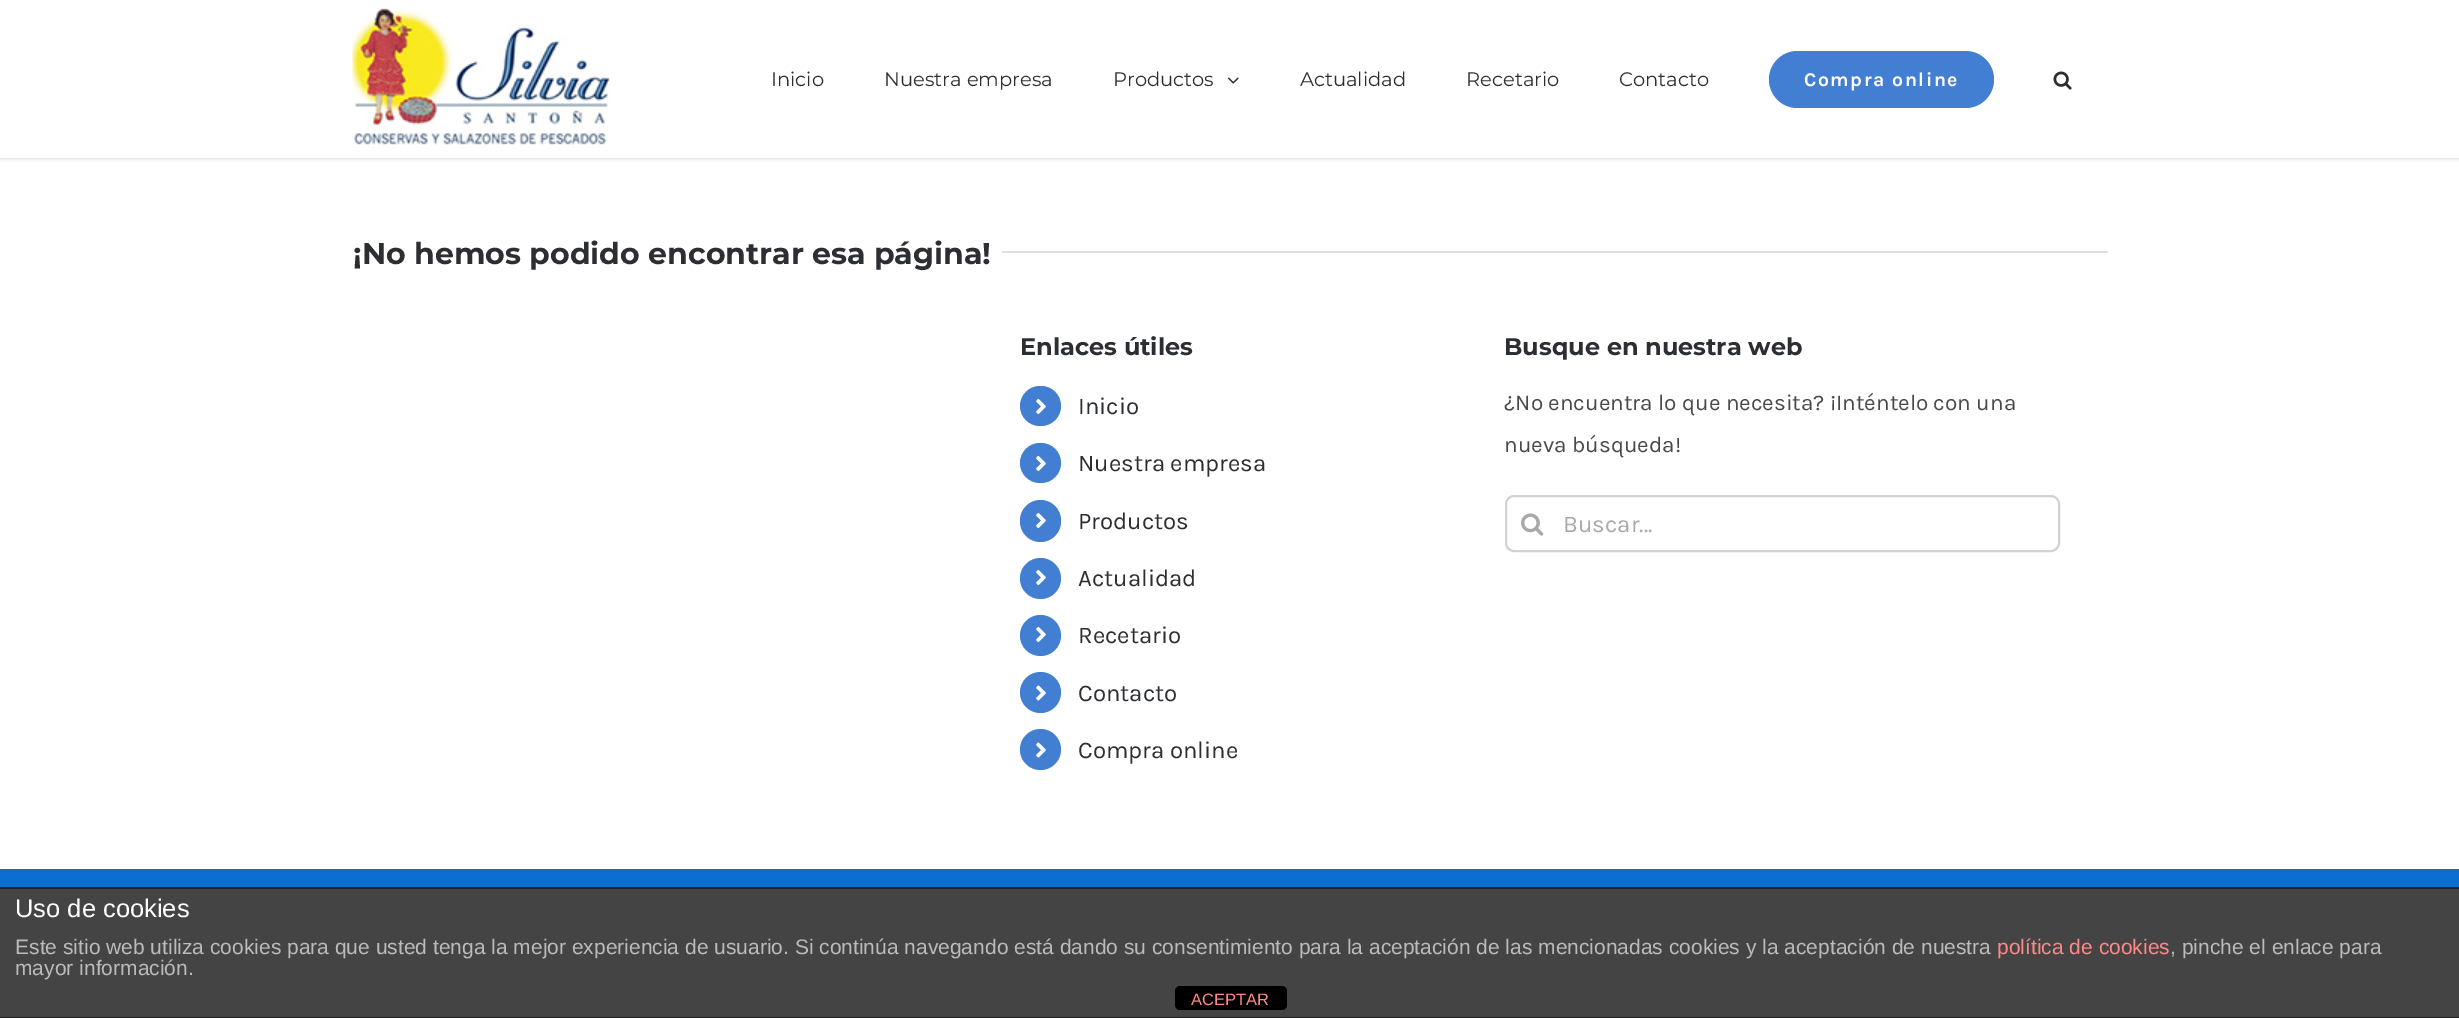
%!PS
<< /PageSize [2459 1018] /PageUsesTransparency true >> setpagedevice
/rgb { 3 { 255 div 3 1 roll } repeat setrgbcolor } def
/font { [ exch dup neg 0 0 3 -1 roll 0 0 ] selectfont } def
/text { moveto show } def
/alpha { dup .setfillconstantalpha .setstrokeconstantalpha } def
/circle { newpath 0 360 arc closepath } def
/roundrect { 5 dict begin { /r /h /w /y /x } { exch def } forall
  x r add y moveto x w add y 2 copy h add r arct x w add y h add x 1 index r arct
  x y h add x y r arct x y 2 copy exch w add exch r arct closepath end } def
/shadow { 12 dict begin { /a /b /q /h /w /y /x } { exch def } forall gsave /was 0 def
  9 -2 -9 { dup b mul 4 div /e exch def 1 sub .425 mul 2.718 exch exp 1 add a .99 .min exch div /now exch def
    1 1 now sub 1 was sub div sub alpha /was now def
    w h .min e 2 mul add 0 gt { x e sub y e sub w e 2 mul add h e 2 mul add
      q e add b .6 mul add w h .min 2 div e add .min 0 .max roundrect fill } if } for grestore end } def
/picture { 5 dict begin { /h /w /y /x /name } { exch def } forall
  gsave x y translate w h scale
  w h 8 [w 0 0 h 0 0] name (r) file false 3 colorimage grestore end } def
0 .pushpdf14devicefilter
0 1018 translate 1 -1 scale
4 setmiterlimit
255 255 255 rgb
0 0 2459 1018 rectfill
gsave
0 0 moveto 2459 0 rlineto 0 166 rlineto -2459 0 rlineto closepath 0 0 moveto 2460 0 rlineto 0 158 rlineto -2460 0 rlineto closepath eoclip newpath
0 0 0 rgb
0 2 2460 157 0 2 0.12 shadow
grestore
0.99 alpha
0 157 2459 1 rectfill
1 alpha
(img_01.rgb) 352 8 258 137 picture
(img_02.rgb) 1227 77 12 7 picture
66 126 209 rgb
1769 51 225 57 28.5 roundrect fill
(img_03.rgb) 2053 71 19 19 picture
224 222 222 rgb
1002 251 1106 2 rectfill
66 126 209 rgb
1020 386 41 40 20 roundrect fill
(img_04.rgb) 1036 399 10 15 picture
1020 443 41 40 20 roundrect fill
(img_04.rgb) 1036 456 10 15 picture
1020 500 41 42 20.5 roundrect fill
(img_04.rgb) 1036 513 10 15 picture
1040.5 578.5 20.5 circle fill
(img_04.rgb) 1036 570 10 15 picture
1040.5 635.5 20.5 circle fill
(img_04.rgb) 1036 627 10 15 picture
1040.5 692.5 20.5 circle fill
(img_05.rgb) 1036 685 10 16 picture
1040.5 749.5 20.5 circle fill
(img_05.rgb) 1036 742 10 16 picture
210 210 210 rgb
2 setlinewidth
1506 496 553 55 8 roundrect stroke
(img_06.rgb) 1521 513 23 23 picture
11 111 209 rgb
0 869 2459 18 rectfill
68 68 68 rgb
0 889 2459 128 rectfill
34 34 34 rgb
0 887 2459 2 rectfill
0 1017 2459 1 rectfill
0 0 0 rgb
1175 986 112 24 5 roundrect fill
/Montserrat-Regular 19.5 font
43 46 50 rgb
(Inicio) 771 86 text
(Nuestra empresa) 884 86 text
(Productos) 1113 86 text
(Actualidad) 1300 86 text
(Recetario) 1466 86 text
(Contacto) 1619 86 text
/Karla-Bold 19.5 font
255 255 255 rgb
1804 86 moveto 1.5 0 (Compra online) ashow
/Montserrat-Bold 30 font
43 46 50 rgb
(¡No hemos podido encontrar esa página!) 353 264 text
/Montserrat-Bold 24 font
(Enlaces útiles) 1020 355 text
/Karla-Regular 24 font
(Inicio) 1078 414 text
(Nuestra empresa) 1078 471 text
(Productos) 1078 529 text
(Actualidad) 1078 586 text
(Recetario) 1078 643 text
(Contacto) 1078 701 text
(Compra online) 1078 758 text
/Montserrat-Bold 24 font
(Busque en nuestra web) 1504 355 text
/Karla-Regular 22.5 font
73 73 73 rgb
(¿No encuentra lo que necesita? ¡Inténtelo con una) 1504 410 text
(nueva búsqueda!) 1504 452 text
/Karla-Regular 24 font
170 169 169 rgb
(Buscar...) 1563 532 text
/LiberationSans-Regular 25.5 font
255 255 255 rgb
(Uso de cookies) 15 917 text
/LiberationSans-Regular 21 font
187 187 187 rgb
(Este sitio web utiliza cookies para que usted tenga la mejor experiencia de usuario. Si continúa navegando está dando su consentimiento para la aceptación de las mencionadas cookies y la aceptación de nuestra) 15 954 text
255 136 136 rgb
(política de cookies) 1997 954 text
187 187 187 rgb
(, pinche el enlace para) 2170 954 text
(mayor información.) 15 975 text
/LiberationSans-Regular 16.5 font
255 136 136 rgb
(ACEPTAR) 1191 1005 text
.poppdf14devicefilter showpage
